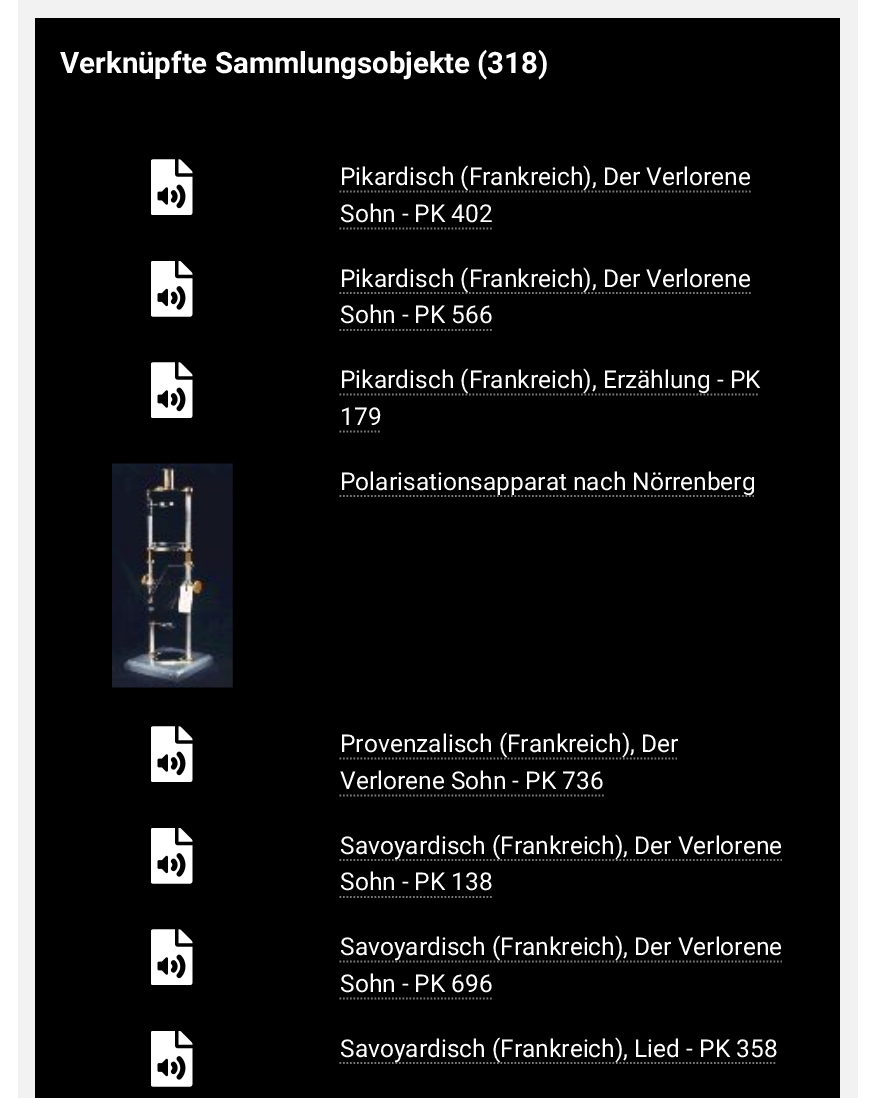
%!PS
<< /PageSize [874 1098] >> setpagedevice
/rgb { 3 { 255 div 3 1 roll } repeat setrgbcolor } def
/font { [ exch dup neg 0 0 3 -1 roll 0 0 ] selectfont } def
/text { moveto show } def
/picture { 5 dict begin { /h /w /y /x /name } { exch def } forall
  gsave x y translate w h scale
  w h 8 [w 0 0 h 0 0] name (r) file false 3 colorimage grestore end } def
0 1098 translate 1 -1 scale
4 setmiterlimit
255 255 255 rgb
0 0 874 1098 rectfill
242 242 242 rgb
18 0 840 1098 rectfill
0 0 0 rgb
35 18 805 1080 rectfill
(img_01.rgb) 151 159 42 56 picture
120 120 120 rgb
1.8 setlinewidth
[1.75 1.75] 0 setdash
339.5 191.5 moveto 411.5 0 rlineto stroke
339.5 228.5 moveto 152.5 0 rlineto stroke
(img_02.rgb) 151 261 42 56 picture
339.5 293 moveto 411.5 0 rlineto stroke
339.5 330 moveto 152.5 0 rlineto stroke
(img_01.rgb) 151 362 42 56 picture
339.5 394.5 moveto 420 0 rlineto stroke
339.5 431.5 moveto 42 0 rlineto stroke
(img_03.rgb) 112 463 121 225 picture
339.5 496 moveto 414.5 0 rlineto stroke
(img_01.rgb) 151 726 42 56 picture
339.5 758.5 moveto 337.5 0 rlineto stroke
339.5 795.5 moveto 264.5 0 rlineto stroke
(img_02.rgb) 151 828 42 56 picture
339.5 860 moveto 442.5 0 rlineto stroke
339.5 897 moveto 152.5 0 rlineto stroke
(img_01.rgb) 151 929 42 56 picture
339.5 961.5 moveto 442.5 0 rlineto stroke
339.5 998.5 moveto 152.5 0 rlineto stroke
(img_02.rgb) 151 1031 42 56 picture
339.5 1063 moveto 437.5 0 rlineto stroke
/Roboto-Bold 29.4 font
255 255 255 rgb
(Verknüpfte Sammlungsobjekte) 60 73 text
(\(318\)) 477 73 text
/Roboto-Regular 24.5 font
(Pikardisch \(Frankreich\), Der Verlorene) 340 185 text
(Sohn - PK 402) 340 222 text
(Pikardisch \(Frankreich\), Der Verlorene) 340 287 text
(Sohn - PK 566) 340 323 text
(Pikardisch \(Frankreich\), Erzählung - PK) 340 388 text
(179) 340 425 text
(Polarisationsapparat nach Nörrenberg) 340 490 text
(Provenzalisch \(Frankreich\), Der) 340 752 text
(Verlorene Sohn - PK 736) 340 789 text
(Savoyardisch \(Frankreich\), Der Verlorene) 340 854 text
(Sohn - PK 138) 340 890 text
(Savoyardisch \(Frankreich\), Der Verlorene) 340 955 text
(Sohn - PK 696) 340 992 text
(Savoyardisch \(Frankreich\), Lied - PK 358) 340 1057 text
showpage
